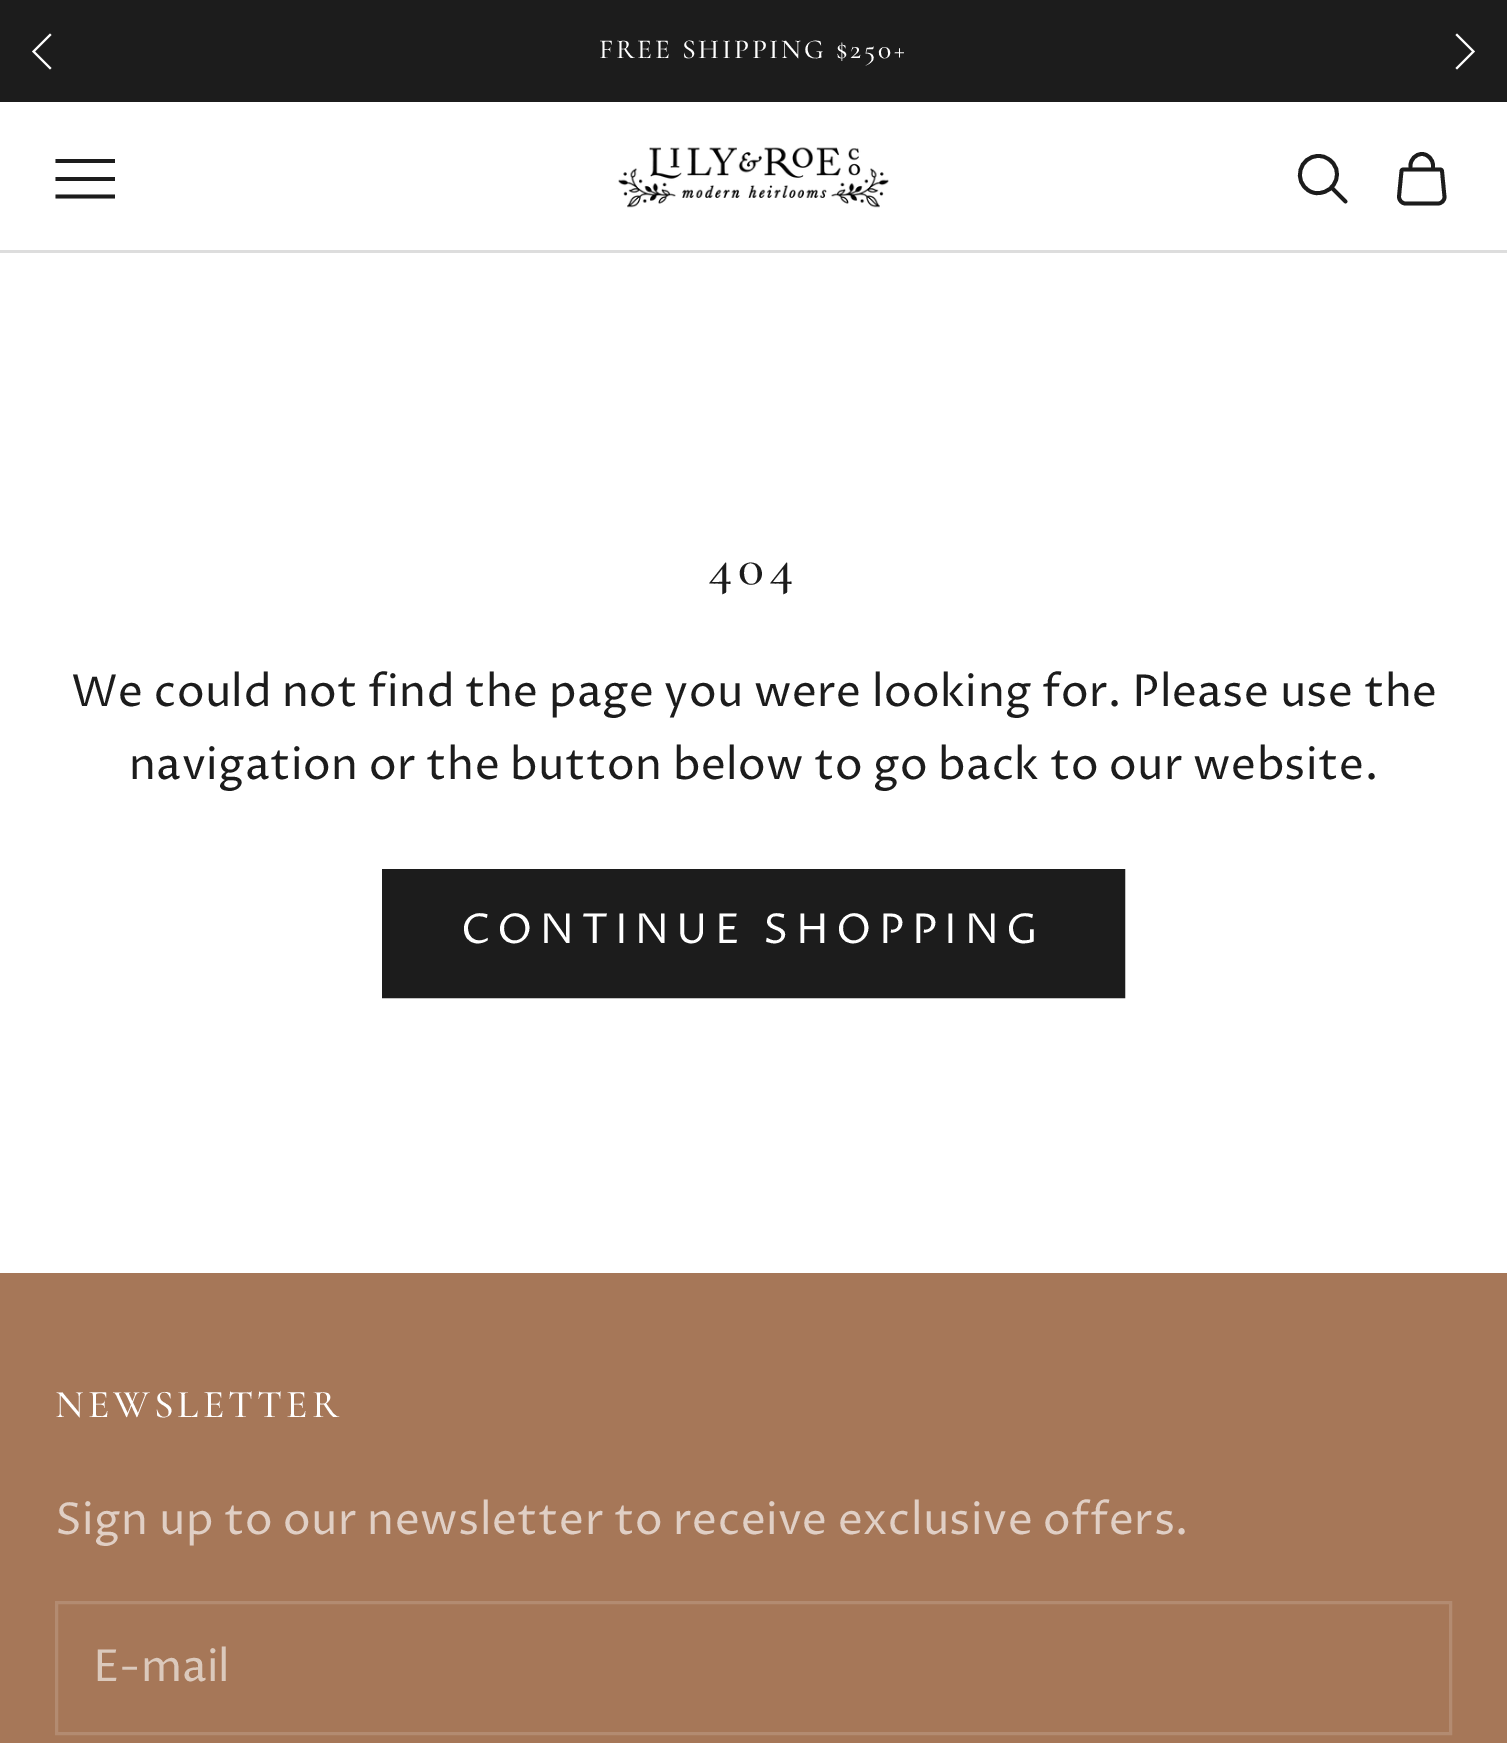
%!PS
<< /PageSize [1507 1743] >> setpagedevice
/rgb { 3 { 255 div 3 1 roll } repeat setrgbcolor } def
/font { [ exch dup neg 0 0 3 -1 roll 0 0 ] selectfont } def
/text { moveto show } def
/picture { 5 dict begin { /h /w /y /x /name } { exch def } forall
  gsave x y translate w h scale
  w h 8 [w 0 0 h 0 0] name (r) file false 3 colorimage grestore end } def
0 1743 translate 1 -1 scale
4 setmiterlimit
255 255 255 rgb
0 0 1507 1743 rectfill
28 28 28 rgb
0 0 1507 102 rectfill
255 255 255 rgb
2.1 setlinewidth
2 setlinecap
50 35 moveto -16.5 16.5 rlineto 16.5 16.5 rlineto stroke
1457 68 moveto 16.5 -16.5 rlineto -16.5 -16.5 rlineto stroke
221 221 221 rgb
0 250 1507 3 rectfill
28 28 28 rgb
3.8 setlinewidth
57.5 196.5 moveto 55.5 0 rlineto 57.5 179 moveto 55.5 0 rlineto 57.5 161 moveto 55.5 0 rlineto stroke
(img_01.rgb) 618 147 271 61 picture
0 setlinecap
1318.5 156 moveto -19 0 -26 25.5 -9 35 rcurveto 2.5 1.5 6 2.5 9 2 rcurveto 18 -0.5 25.5 -23.5 10.5 -33.5 rcurveto -3 -2.5 -6.5 -3.5 -10.5 -3.5 rcurveto closepath stroke
1 setlinecap
1332.5 188.5 moveto 13 13 rlineto stroke
1 setlinejoin
1403.5 169.5 moveto -1 0 -2 0.5 -2 1.5 rcurveto -2.5 25.5 rlineto 0 4 3 7 6.5 7 rcurveto 32.5 0 rlineto 3.5 0 6.5 -3 6.5 -6.5 rcurveto -2.5 -26 rlineto 0 -1 -1 -1.5 -2 -1.5 rcurveto closepath 1410.5 169.5 moveto 0 -4 rlineto 0 -6 5 -11.5 11.5 -11.5 rcurveto 6 0 11 5.5 11 11.5 rcurveto 0 4 rlineto stroke
383.5 870.5 moveto 740 0 rlineto 0 126 rlineto -740 0 rlineto closepath gsave fill grestore
3 setlinewidth
0 setlinecap
0 setlinejoin
stroke
166 119 88 rgb
0 1273 1507 470 rectfill
179 139 113 rgb
56.5 1602.5 1394 131 rectstroke
/Cormorant-Medium 27.5 font
255 255 255 rgb
599 58 moveto 2.75 0 (FREE SHIPPING $250+) ashow
/Cormorant-Medium 54 font
28 28 28 rgb
708 584 moveto 5.5 0 (404) ashow
/ProzaLibre-Regular 44 font
71 706 moveto 0.45 0 (We could not find the page you were looking for. Please use the) ashow
129 779 moveto 0.45 0 (navigation or the button below to go back to our website.) ashow
/ProzaLibre-Regular 41.25 font
255 255 255 rgb
461 943 moveto 7.4 0 (CONTINUE SHOPPING) ashow
/Cormorant-Medium 39.5 font
55 1417 moveto 4 0 (NEWSLETTER) ashow
/ProzaLibre-Regular 44 font
224 207 197 rgb
55 1534 moveto 0.45 0 (Sign up to our newsletter to receive exclusive offers.) ashow
219 201 188 rgb
(E-mail) 93 1681 text
showpage
